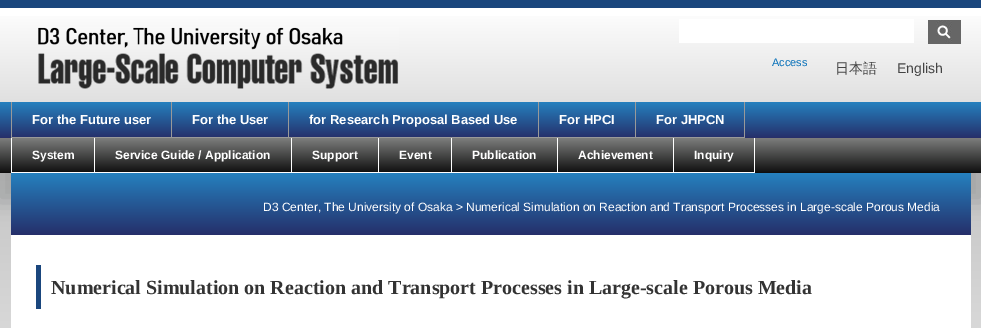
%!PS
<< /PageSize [981 328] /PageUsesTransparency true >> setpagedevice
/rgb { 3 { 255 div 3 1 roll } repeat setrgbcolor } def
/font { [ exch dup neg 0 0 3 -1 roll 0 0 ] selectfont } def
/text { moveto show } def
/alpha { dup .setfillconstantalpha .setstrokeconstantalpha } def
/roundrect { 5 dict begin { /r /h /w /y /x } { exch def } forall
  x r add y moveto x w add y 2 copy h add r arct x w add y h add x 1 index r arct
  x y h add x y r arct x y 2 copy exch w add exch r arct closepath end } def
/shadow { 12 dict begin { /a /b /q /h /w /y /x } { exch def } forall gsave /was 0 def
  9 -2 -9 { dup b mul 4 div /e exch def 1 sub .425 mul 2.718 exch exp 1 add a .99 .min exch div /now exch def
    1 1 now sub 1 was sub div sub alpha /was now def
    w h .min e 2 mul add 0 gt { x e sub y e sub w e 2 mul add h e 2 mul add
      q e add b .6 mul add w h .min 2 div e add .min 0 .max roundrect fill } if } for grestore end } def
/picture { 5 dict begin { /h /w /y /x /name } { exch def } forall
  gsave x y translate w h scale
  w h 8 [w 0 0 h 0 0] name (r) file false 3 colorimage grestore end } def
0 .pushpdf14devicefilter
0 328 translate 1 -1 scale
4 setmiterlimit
255 255 255 rgb
0 0 981 328 rectfill
gsave 0 173 moveto 981 0 rlineto 0 155 rlineto -981 0 rlineto closepath clip newpath
<< /ShadingType 2 /ColorSpace /DeviceRGB /Coords [490 0 491 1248] /Extend [true true] /Function << /FunctionType 3 /Domain [0 1] /Functions [<< /FunctionType 2 /Domain [0 1] /C0 [0.686 0.686 0.686] /C1 [1 1 1] /N 1 >> << /FunctionType 2 /Domain [0 1] /C0 [1 1 1] /C1 [1 1 1] /N 1 >> << /FunctionType 2 /Domain [0 1] /C0 [1 1 1] /C1 [1 1 1] /N 1 >>] /Bounds [0.51 0.99] /Encode [0 1 0 1 0 1] >> >> shfill grestore
gsave 0 16 moveto 981 0 rlineto 0 86 rlineto -981 0 rlineto closepath clip newpath
<< /ShadingType 2 /ColorSpace /DeviceRGB /Coords [491 8 491 102] /Extend [true true] /Function << /FunctionType 2 /Domain [0 1] /C0 [1 1 1] /C1 [0.878 0.878 0.878] /N 1 >> >> shfill grestore
26 70 125 rgb
0 0 981 8 rectfill
(img_01.rgb) 38 27 361 62 picture
255 255 255 rgb
679 19 235 24 rectfill
(img_02.rgb) 928 20 33 24 picture
gsave 0 102 moveto 981 0 rlineto 0 36 rlineto -981 0 rlineto closepath clip newpath
<< /ShadingType 2 /ColorSpace /DeviceRGB /Coords [491 102 491 138] /Extend [true true] /Function << /FunctionType 2 /Domain [0 1] /C0 [0.145 0.506 0.749] /C1 [0.149 0.184 0.416] /N 1 >> >> shfill grestore
153 153 153 rgb
11 102 1 36 rectfill
86 89 94 rgb
-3 161 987 41 0 11 0.33 shadow
153 153 153 rgb
171 102 1 36 rectfill
12 137 160 1 rectfill
288 102 1 36 rectfill
172 137 117 1 rectfill
538 102 1 36 rectfill
289 137 250 1 rectfill
635 102 1 36 rectfill
539 137 97 1 rectfill
744 102 1 36 rectfill
636 137 109 1 rectfill
gsave 0 138 moveto 981 0 rlineto 0 35 rlineto -981 0 rlineto closepath clip newpath
<< /ShadingType 2 /ColorSpace /DeviceRGB /Coords [491 138 491 173] /Extend [true true] /Function << /FunctionType 2 /Domain [0 1] /C0 [0.49 0.494 0.49] /C1 [0.055 0.055 0.055] /N 1 >> >> shfill grestore
255 255 255 rgb
11 138 1 35 rectfill
94 138 1 35 rectfill
12 172 83 1 rectfill
291 138 1 35 rectfill
95 172 197 1 rectfill
378 138 1 35 rectfill
292 172 87 1 rectfill
451 138 1 35 rectfill
379 172 73 1 rectfill
557 138 1 35 rectfill
452 172 106 1 rectfill
673 138 1 35 rectfill
558 172 116 1 rectfill
754 138 1 35 rectfill
674 172 81 1 rectfill
gsave 11 173 moveto 960 0 rlineto 0 62 rlineto -960 0 rlineto closepath clip newpath
<< /ShadingType 2 /ColorSpace /DeviceRGB /Coords [491 173 491 235] /Extend [true true] /Function << /FunctionType 2 /Domain [0 1] /C0 [0.145 0.506 0.749] /C1 [0.149 0.184 0.416] /N 1 >> >> shfill grestore
11 235 960 93 rectfill
26 70 125 rgb
36 265 5 44 rectfill
/LiberationSans-Regular 11 font
3 110 184 rgb
(Access) 772 66 text
/WenQuanYiZenHei-Medium 14 font
68 68 68 rgb
(日本語) 835 73 text
/LiberationSans-Regular 14 font
(English) 897 73 text
/LiberationSans-Bold 13 font
255 255 255 rgb
(For the Future user) 32 124 text
(For the User) 192 124 text
(for Research Proposal Based Use) 309 124 text
(For HPCI) 559 124 text
(For JHPCN) 656 124 text
/LiberationSans-Bold 12 font
(System) 32 159 text
(Service Guide / Application) 115 159 text
(Support) 312 159 text
(Event) 399 159 text
(Publication) 472 159 text
(Achievement) 578 159 text
(Inquiry) 694 159 text
/LiberationSans-Regular 12 font
(D3 Center, The University of Osaka > Numerical Simulation on Reaction and Transport Processes in Large-scale Porous Media) 263 211 text
/LiberationSerif-Bold 20 font
51 51 51 rgb
(Numerical Simulation on Reaction and Transport Processes in Large-scale Porous Media) 51 294 text
.poppdf14devicefilter showpage
